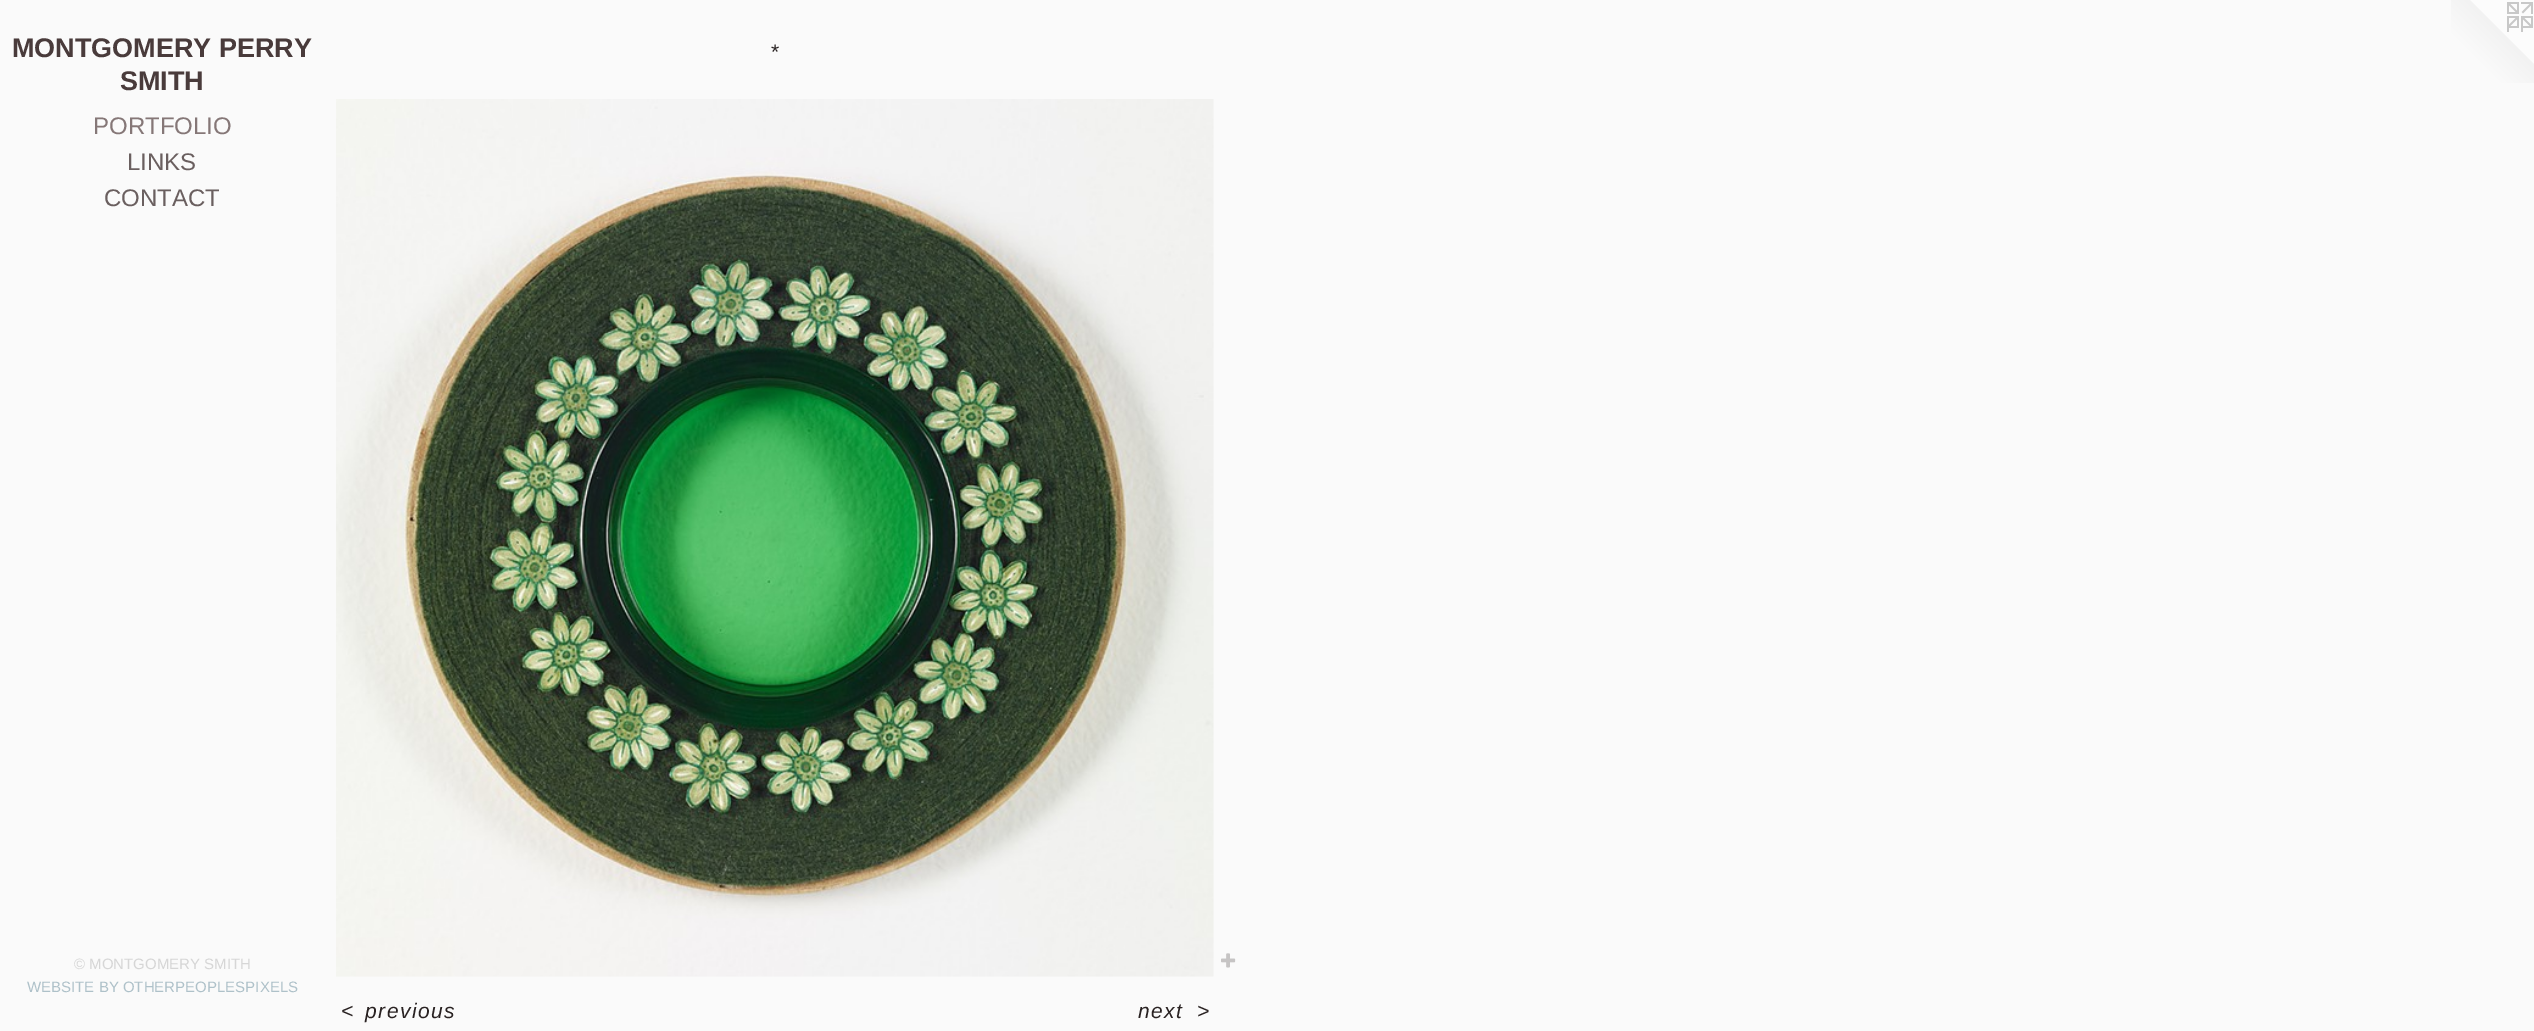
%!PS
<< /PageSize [2534 1031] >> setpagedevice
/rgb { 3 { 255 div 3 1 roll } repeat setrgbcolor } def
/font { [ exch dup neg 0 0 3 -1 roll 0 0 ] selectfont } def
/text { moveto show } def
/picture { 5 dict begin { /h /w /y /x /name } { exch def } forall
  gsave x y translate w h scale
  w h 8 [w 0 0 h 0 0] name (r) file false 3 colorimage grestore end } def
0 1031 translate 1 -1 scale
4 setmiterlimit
250 250 250 rgb
0 0 2534 1031 rectfill
(img_01.rgb) 336 99 878 878 picture
(img_02.rgb) 1221 953 15 15 picture
(img_03.rgb) 2451 0 83 83 picture
/LiberationSans-Bold 27 font
73 59 59 rgb
(MONTGOMERY PERRY) 12 57 text
(SMITH) 120 90 text
/LiberationSans-Regular 24 font
133 119 119 rgb
(PORTFOLIO) 93 134 text
106 95 95 rgb
(LINKS) 127 170 text
(CONTACT) 104 206 text
/LiberationSans-Regular 15 font
214 214 214 rgb
(© MONTGOMERY SMITH) 74 969 text
174 193 201 rgb
(WEBSITE BY OTHERPEOPLESPIXELS) 27 992 text
/LiberationSans-Regular 21 font
41 34 34 rgb
(*) 771 59 text
/LiberationSans-Italic 21 font
341 1018 moveto 1.5 0 (<) ashow
365 1018 moveto 1.5 0 (previous) ashow
1138 1018 moveto 1.5 0 (next) ashow
1197 1018 moveto 1.5 0 (>) ashow
showpage
